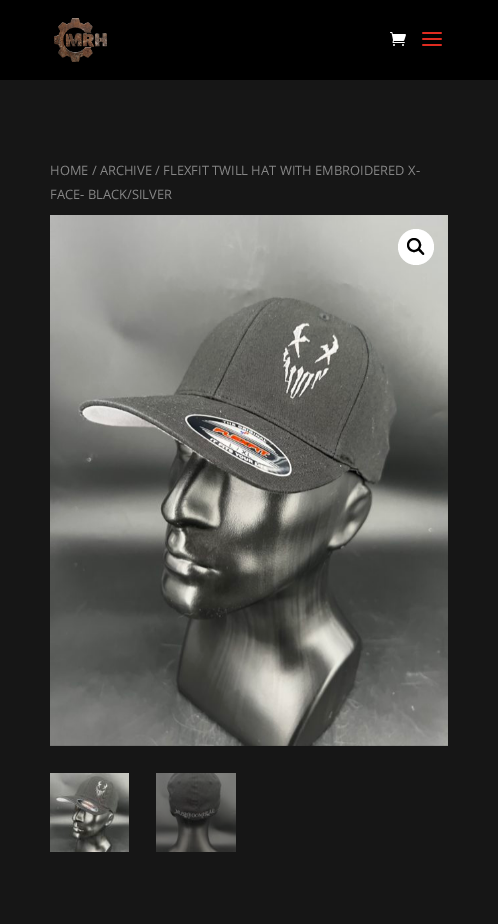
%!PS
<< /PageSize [498 924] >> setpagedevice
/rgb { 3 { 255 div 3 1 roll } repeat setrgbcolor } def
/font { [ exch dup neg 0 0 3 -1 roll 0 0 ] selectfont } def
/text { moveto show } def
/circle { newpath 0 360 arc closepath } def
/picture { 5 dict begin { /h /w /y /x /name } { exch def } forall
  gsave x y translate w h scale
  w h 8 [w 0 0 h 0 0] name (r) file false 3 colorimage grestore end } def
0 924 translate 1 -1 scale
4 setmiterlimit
22 22 22 rgb
0 0 498 924 rectfill
0 0 0 rgb
0 0 498 80 rectfill
(img_01.rgb) 54 18 53 44 picture
(img_02.rgb) 390 32 16 14 picture
(img_03.rgb) 422 32 20 14 picture
(img_04.rgb) 50 215 398 531 picture
255 255 255 rgb
416 247 18 circle fill
0 0 0 rgb
2 setlinewidth
414 245 6 circle stroke
418.5 249 moveto 1 -1 3 1.5 3.5 2 rcurveto 0.5 1 3 2.5 2 3.5 rcurveto -1 1.5 -3 -1.5 -3.5 -2 rcurveto -0.5 -0.5 -3.5 -2.5 -2 -3.5 rcurveto closepath fill
(img_05.rgb) 50 773 79 79 picture
(img_06.rgb) 156 773 80 79 picture
/OpenSans-Regular 12.9 font
135 135 135 rgb
(HOME / ARCHIVE / FLEXFIT TWILL HAT WITH EMBROIDERED X-) 50 175 text
(FACE- BLACK/SILVER) 50 199 text
showpage
